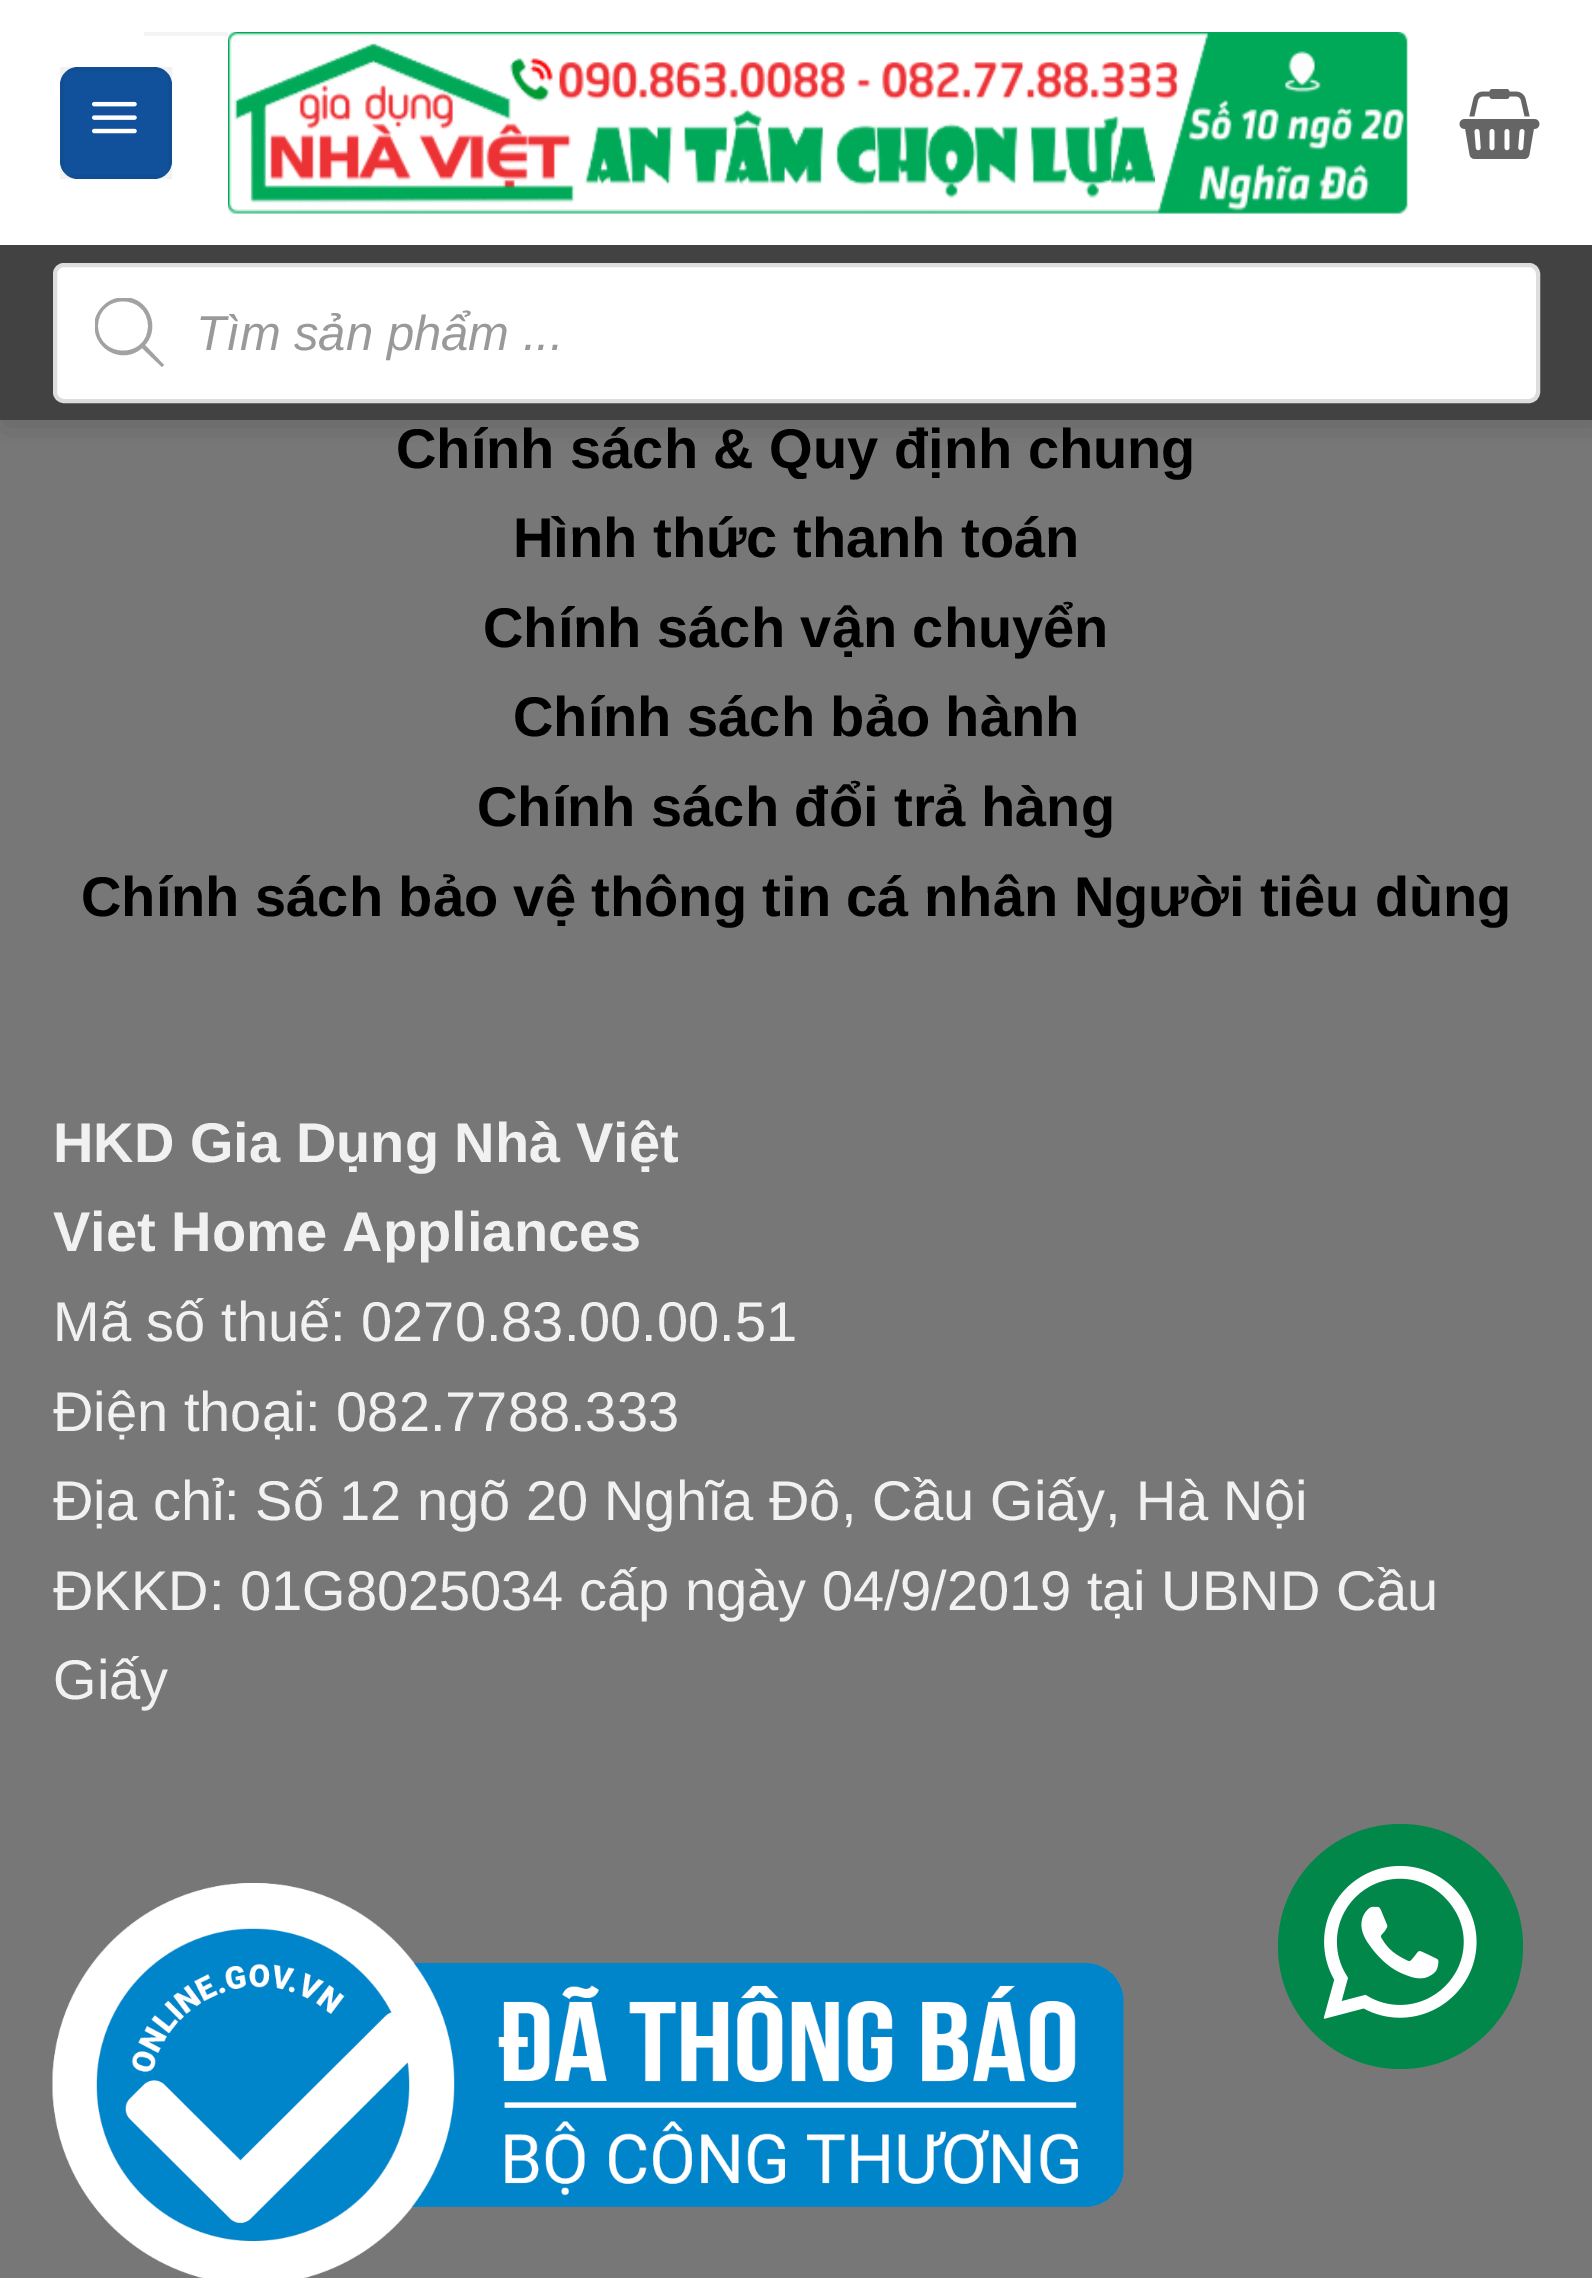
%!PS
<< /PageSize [1592 2278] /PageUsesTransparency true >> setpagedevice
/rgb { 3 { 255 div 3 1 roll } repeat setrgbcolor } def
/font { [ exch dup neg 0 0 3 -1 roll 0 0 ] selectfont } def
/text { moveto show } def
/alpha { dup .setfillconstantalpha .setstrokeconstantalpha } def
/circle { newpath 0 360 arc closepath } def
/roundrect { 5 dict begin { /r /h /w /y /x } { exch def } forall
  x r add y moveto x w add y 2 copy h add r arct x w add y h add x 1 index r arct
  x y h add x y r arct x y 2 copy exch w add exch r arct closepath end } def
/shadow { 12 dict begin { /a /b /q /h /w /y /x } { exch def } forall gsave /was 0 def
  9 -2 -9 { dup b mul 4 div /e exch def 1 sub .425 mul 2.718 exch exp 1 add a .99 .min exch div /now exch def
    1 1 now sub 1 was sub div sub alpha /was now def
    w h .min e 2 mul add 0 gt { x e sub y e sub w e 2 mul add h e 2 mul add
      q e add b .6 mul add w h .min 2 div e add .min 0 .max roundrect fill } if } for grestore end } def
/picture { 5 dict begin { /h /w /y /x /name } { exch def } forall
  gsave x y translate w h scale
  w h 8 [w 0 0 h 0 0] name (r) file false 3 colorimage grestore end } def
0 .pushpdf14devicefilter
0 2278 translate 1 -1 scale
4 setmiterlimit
255 255 255 rgb
0 0 1592 2278 rectfill
244 244 244 rgb
144 32 84 4 rectfill
119 119 119 rgb
0 420 1592 1858 rectfill
gsave
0 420 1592 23 rectclip
0 0 0 rgb
4 4 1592 420 0 17.5 0.15 shadow
grestore
17 81 155 rgb
60 67 112 112 18 roundrect fill
0.05 alpha
0 0 0 rgb
4 setlinewidth
62 69 108 108 rectstroke
1 alpha
(img_01.rgb) 92 101 45 33 picture
(img_02.rgb) 228 32 1180 182 picture
(img_03.rgb) 1459 89 81 70 picture
66 66 66 rgb
0 245 1592 175 rectfill
255 255 255 rgb
55 265 1483 136 9 roundrect gsave fill grestore
221 221 221 rgb
stroke
gsave
95 298 70 70 rectclip
162 162 162 rgb
164 365 moveto -19 -20 rlineto 18 -20 0 -53 -27 -47 rcurveto -6 1 -11 4 -15 8 rcurveto -4 4 -7 9 -8 14 rcurveto -5 28 27 46 47 28 rcurveto 20 19 rlineto closepath 98 326 moveto 0 -33 50 -33 50 0 rcurveto 0 33 -50 33 -50 0 rcurveto closepath fill
grestore
(img_04.rgb) 52 1883 1072 395 picture
0 135 73 rgb
1400.5 1946.5 122.5 circle fill
(img_05.rgb) 1323 1865 154 154 picture
/LiberationSans-Italic 49 font
153 153 153 rgb
(Tìm sản phẩm ...) 196 350 text
/LiberationSans-Bold 56 font
0 0 0 rgb
(Chính sách & Quy định chung) 396 468 text
(Hình thức thanh toán) 513 557 text
(Chính sách vận chuyển) 483 647 text
(Chính sách bảo hành) 513 736 text
(Chính sách đổi trả hàng) 477 826 text
(Chính sách bảo vệ thông tin cá nhân Người tiêu dùng) 81 916 text
241 241 241 rgb
(HKD Gia Dụng Nhà Việt) 53 1162 text
(Viet Home Appliances) 53 1251 text
/LiberationSans-Regular 56 font
(Mã số thuế: 0270.83.00.00.51) 53 1341 text
(Điện thoại: 082.7788.333) 53 1431 text
(Địa chỉ: Số 12 ngõ 20 Nghĩa Đô, Cầu Giấy, Hà Nội) 53 1520 text
(ĐKKD: 01G8025034 cấp ngày 04/9/2019 tại UBND Cầu) 53 1610 text
(Giấy) 53 1699 text
.poppdf14devicefilter showpage
